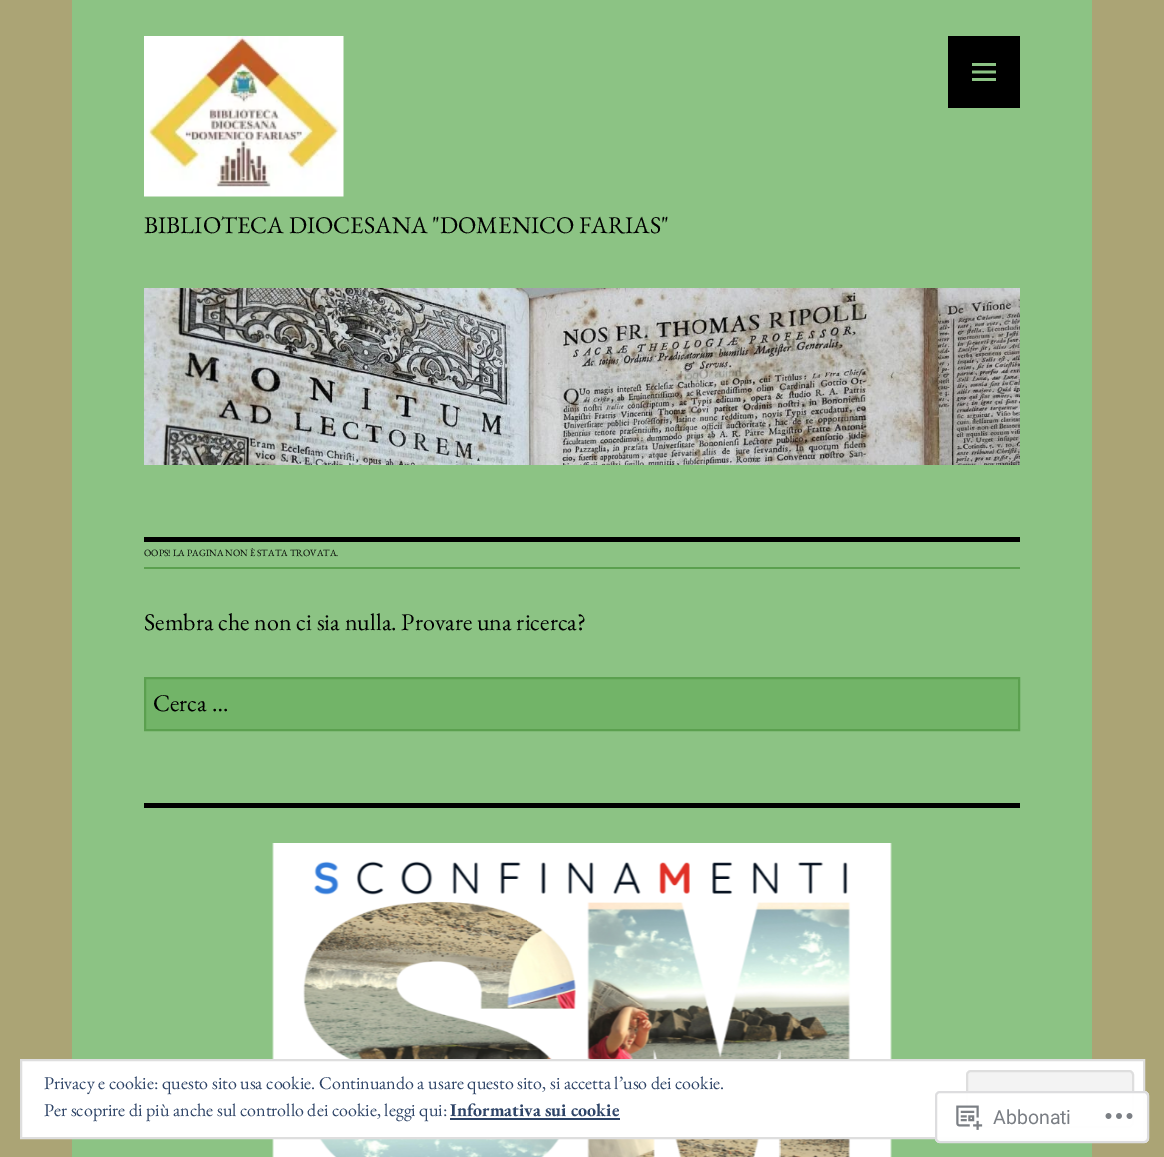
%!PS
<< /PageSize [1164 1157] /PageUsesTransparency true >> setpagedevice
/rgb { 3 { 255 div 3 1 roll } repeat setrgbcolor } def
/font { [ exch dup neg 0 0 3 -1 roll 0 0 ] selectfont } def
/text { moveto show } def
/alpha { dup .setfillconstantalpha .setstrokeconstantalpha } def
/roundrect { 5 dict begin { /r /h /w /y /x } { exch def } forall
  x r add y moveto x w add y 2 copy h add r arct x w add y h add x 1 index r arct
  x y h add x y r arct x y 2 copy exch w add exch r arct closepath end } def
/picture { 5 dict begin { /h /w /y /x /name } { exch def } forall
  gsave x y translate w h scale
  w h 8 [w 0 0 h 0 0] name (r) file false 3 colorimage grestore end } def
0 .pushpdf14devicefilter
0 1157 translate 1 -1 scale
4 setmiterlimit
171 164 117 rgb
0 0 1164 1157 rectfill
140 195 132 rgb
72 0 1020 1157 rectfill
0 0 0 rgb
948 36 72 72 rectfill
(img_01.rgb) 972 63 24 18 picture
(img_02.rgb) 144 36 200 161 picture
(img_03.rgb) 144 288 876 177 picture
144 537 876 5 rectfill
91 160 79 rgb
144 567 876 2 rectfill
114 180 104 rgb
145 678 moveto 874 0 rlineto 0 52 rlineto -874 0 rlineto closepath gsave fill grestore
91 160 79 rgb
2 setlinewidth
stroke
0 0 0 rgb
144 803 876 5 rectfill
(img_04.rgb) 272 843 620 314 picture
255 255 255 rgb
21 1060 moveto 1123 0 rlineto 0 78 rlineto -1123 0 rlineto closepath gsave fill grestore
222 222 222 rgb
stroke
243 243 243 rgb
967 1071 166 56 4 roundrect gsave fill grestore
222 222 222 rgb
stroke
46 68 103 rgb
450 1118 170 2 rectfill
0.98 alpha
255 255 255 rgb
935 1091 214 52 5 roundrect fill
220 220 222 rgb
936 1092 212 50 4 roundrect stroke
1 alpha
(img_05.rgb) 956 1105 27 25 picture
(img_06.rgb) 1105 1113 28 6 picture
/EBGaramond-Regular 24 font
0 0 0 rgb
(BIBLIOTECA DIOCESANA "DOMENICO FARIAS") 144 233 text
/EBGaramond-Regular 9.6 font
(OOPS! LA PAGINA NON È STATA TROVATA.) 144 556 text
/EBGaramond-Regular 24 font
(Sembra che non ci sia nulla. Provare una ricerca?) 144 630 text
(Cerca …) 153 711 text
/EBGaramond-Regular 18 font
46 68 103 rgb
(Privacy e cookie: questo sito usa cookie. Continuando a usare questo sito, si accetta l’uso dei cookie.) 44 1089 text
(Per scoprire di più anche sul controllo dei cookie, leggi qui:) 44 1116 text
/EBGaramond-Bold 18 font
(Informativa sui cookie) 450 1116 text
/Roboto-Regular 19.5 font
122 126 132 rgb
(Abbonati) 993 1124 text
.poppdf14devicefilter showpage
